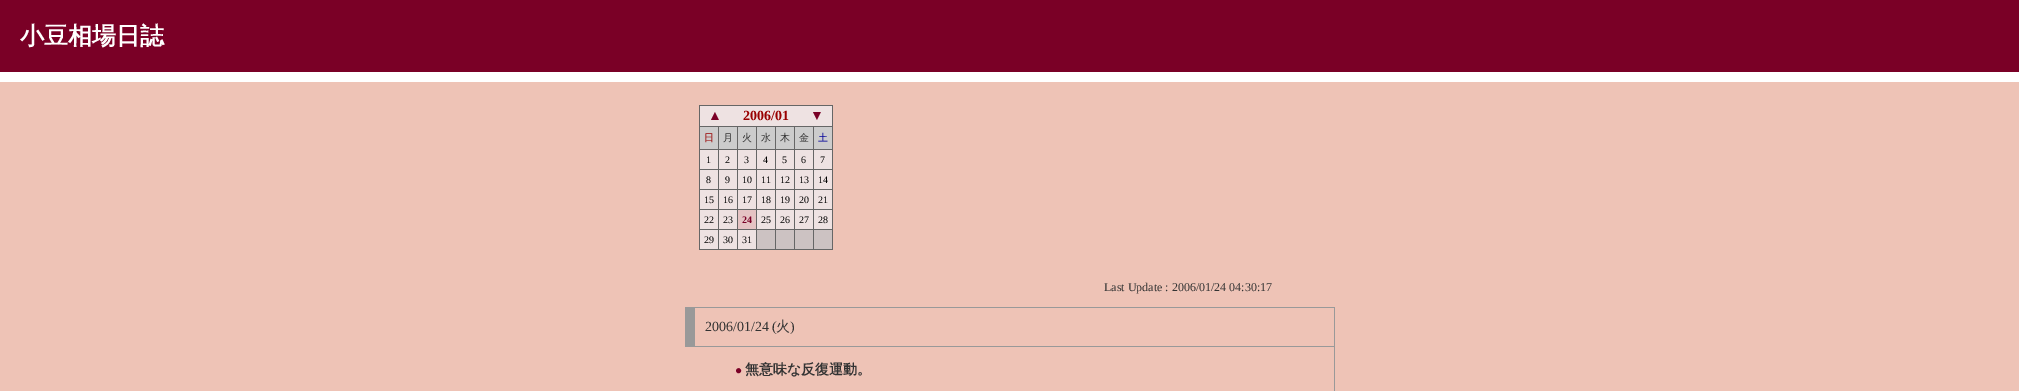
%!PS
<< /PageSize [2019 391] >> setpagedevice
/rgb { 3 { 255 div 3 1 roll } repeat setrgbcolor } def
/font { [ exch dup neg 0 0 3 -1 roll 0 0 ] selectfont } def
/text { moveto show } def
0 391 translate 1 -1 scale
4 setmiterlimit
238 195 182 rgb
0 0 2019 391 rectfill
122 0 38 rgb
0 0 2019 72 rectfill
255 255 255 rgb
0 72 2019 10 rectfill
102 102 102 rgb
699 105 134 145 rectfill
238 226 226 rgb
700 106 132 20 rectfill
204 204 204 rgb
700 127 18 22 rectfill
719 127 18 22 rectfill
738 127 18 22 rectfill
757 127 18 22 rectfill
776 127 18 22 rectfill
795 127 18 22 rectfill
814 127 18 22 rectfill
238 226 226 rgb
700 150 18 19 rectfill
719 150 18 19 rectfill
738 150 18 19 rectfill
757 150 18 19 rectfill
776 150 18 19 rectfill
795 150 18 19 rectfill
814 150 18 19 rectfill
700 170 18 19 rectfill
719 170 18 19 rectfill
738 170 18 19 rectfill
757 170 18 19 rectfill
776 170 18 19 rectfill
795 170 18 19 rectfill
814 170 18 19 rectfill
700 190 18 19 rectfill
719 190 18 19 rectfill
738 190 18 19 rectfill
757 190 18 19 rectfill
776 190 18 19 rectfill
795 190 18 19 rectfill
814 190 18 19 rectfill
700 210 18 19 rectfill
719 210 18 19 rectfill
229 195 195 rgb
738 210 18 19 rectfill
238 226 226 rgb
757 210 18 19 rectfill
776 210 18 19 rectfill
795 210 18 19 rectfill
814 210 18 19 rectfill
700 230 18 19 rectfill
719 230 18 19 rectfill
738 230 18 19 rectfill
204 194 194 rgb
757 230 18 19 rectfill
776 230 18 19 rectfill
795 230 18 19 rectfill
814 230 18 19 rectfill
153 153 153 rgb
685 307 650 1 rectfill
1334 307 1 84 rectfill
695 346 639 1 rectfill
685 308 10 39 rectfill
/WenQuanYiZenHei-Bold 24 font
255 255 255 rgb
(小豆相場日誌) 20 44 text
/LiberationSerif-Bold 14 font
122 0 38 rgb
(▲) 708 120 text
153 0 0 rgb
(2006/01) 743 120 text
122 0 38 rgb
(▼) 810 120 text
/WenQuanYiZenHei-Medium 10 font
153 0 0 rgb
(日) 704 141 text
51 51 51 rgb
(月) 723 141 text
(火) 742 141 text
(水) 761 141 text
(木) 780 141 text
(金) 799 141 text
0 0 153 rgb
(土) 818 141 text
/LiberationSerif-Regular 10 font
0 0 0 rgb
(1) 706 163 text
(2) 725 163 text
(3) 744 163 text
(4) 763 163 text
(5) 782 163 text
(6) 801 163 text
(7) 820 163 text
(8) 706 183 text
(9) 725 183 text
(10) 742 183 text
(11) 761 183 text
(12) 780 183 text
(13) 799 183 text
(14) 818 183 text
(15) 704 203 text
(16) 723 203 text
(17) 742 203 text
(18) 761 203 text
(19) 780 203 text
(20) 799 203 text
(21) 818 203 text
(22) 704 223 text
(23) 723 223 text
/LiberationSerif-Bold 10 font
122 0 38 rgb
(24) 742 223 text
/LiberationSerif-Regular 10 font
0 0 0 rgb
(25) 761 223 text
(26) 780 223 text
(27) 799 223 text
(28) 818 223 text
(29) 704 243 text
(30) 723 243 text
(31) 742 243 text
/LiberationSerif-Regular 12 font
51 51 51 rgb
(Last Update : 2006/01/24 04:30:17) 1104 291 text
/LiberationSerif-Regular 14 font
(2006/01/24 \() 705 331 text
/WenQuanYiZenHei-Medium 14 font
(火) 776 331 text
/LiberationSerif-Regular 14 font
(\)) 790 331 text
/LiberationSerif-Bold 12 font
122 0 38 rgb
(●) 735 374 text
/WenQuanYiZenHei-Bold 14 font
51 51 51 rgb
(無意味な反復運動。) 745 374 text
showpage
